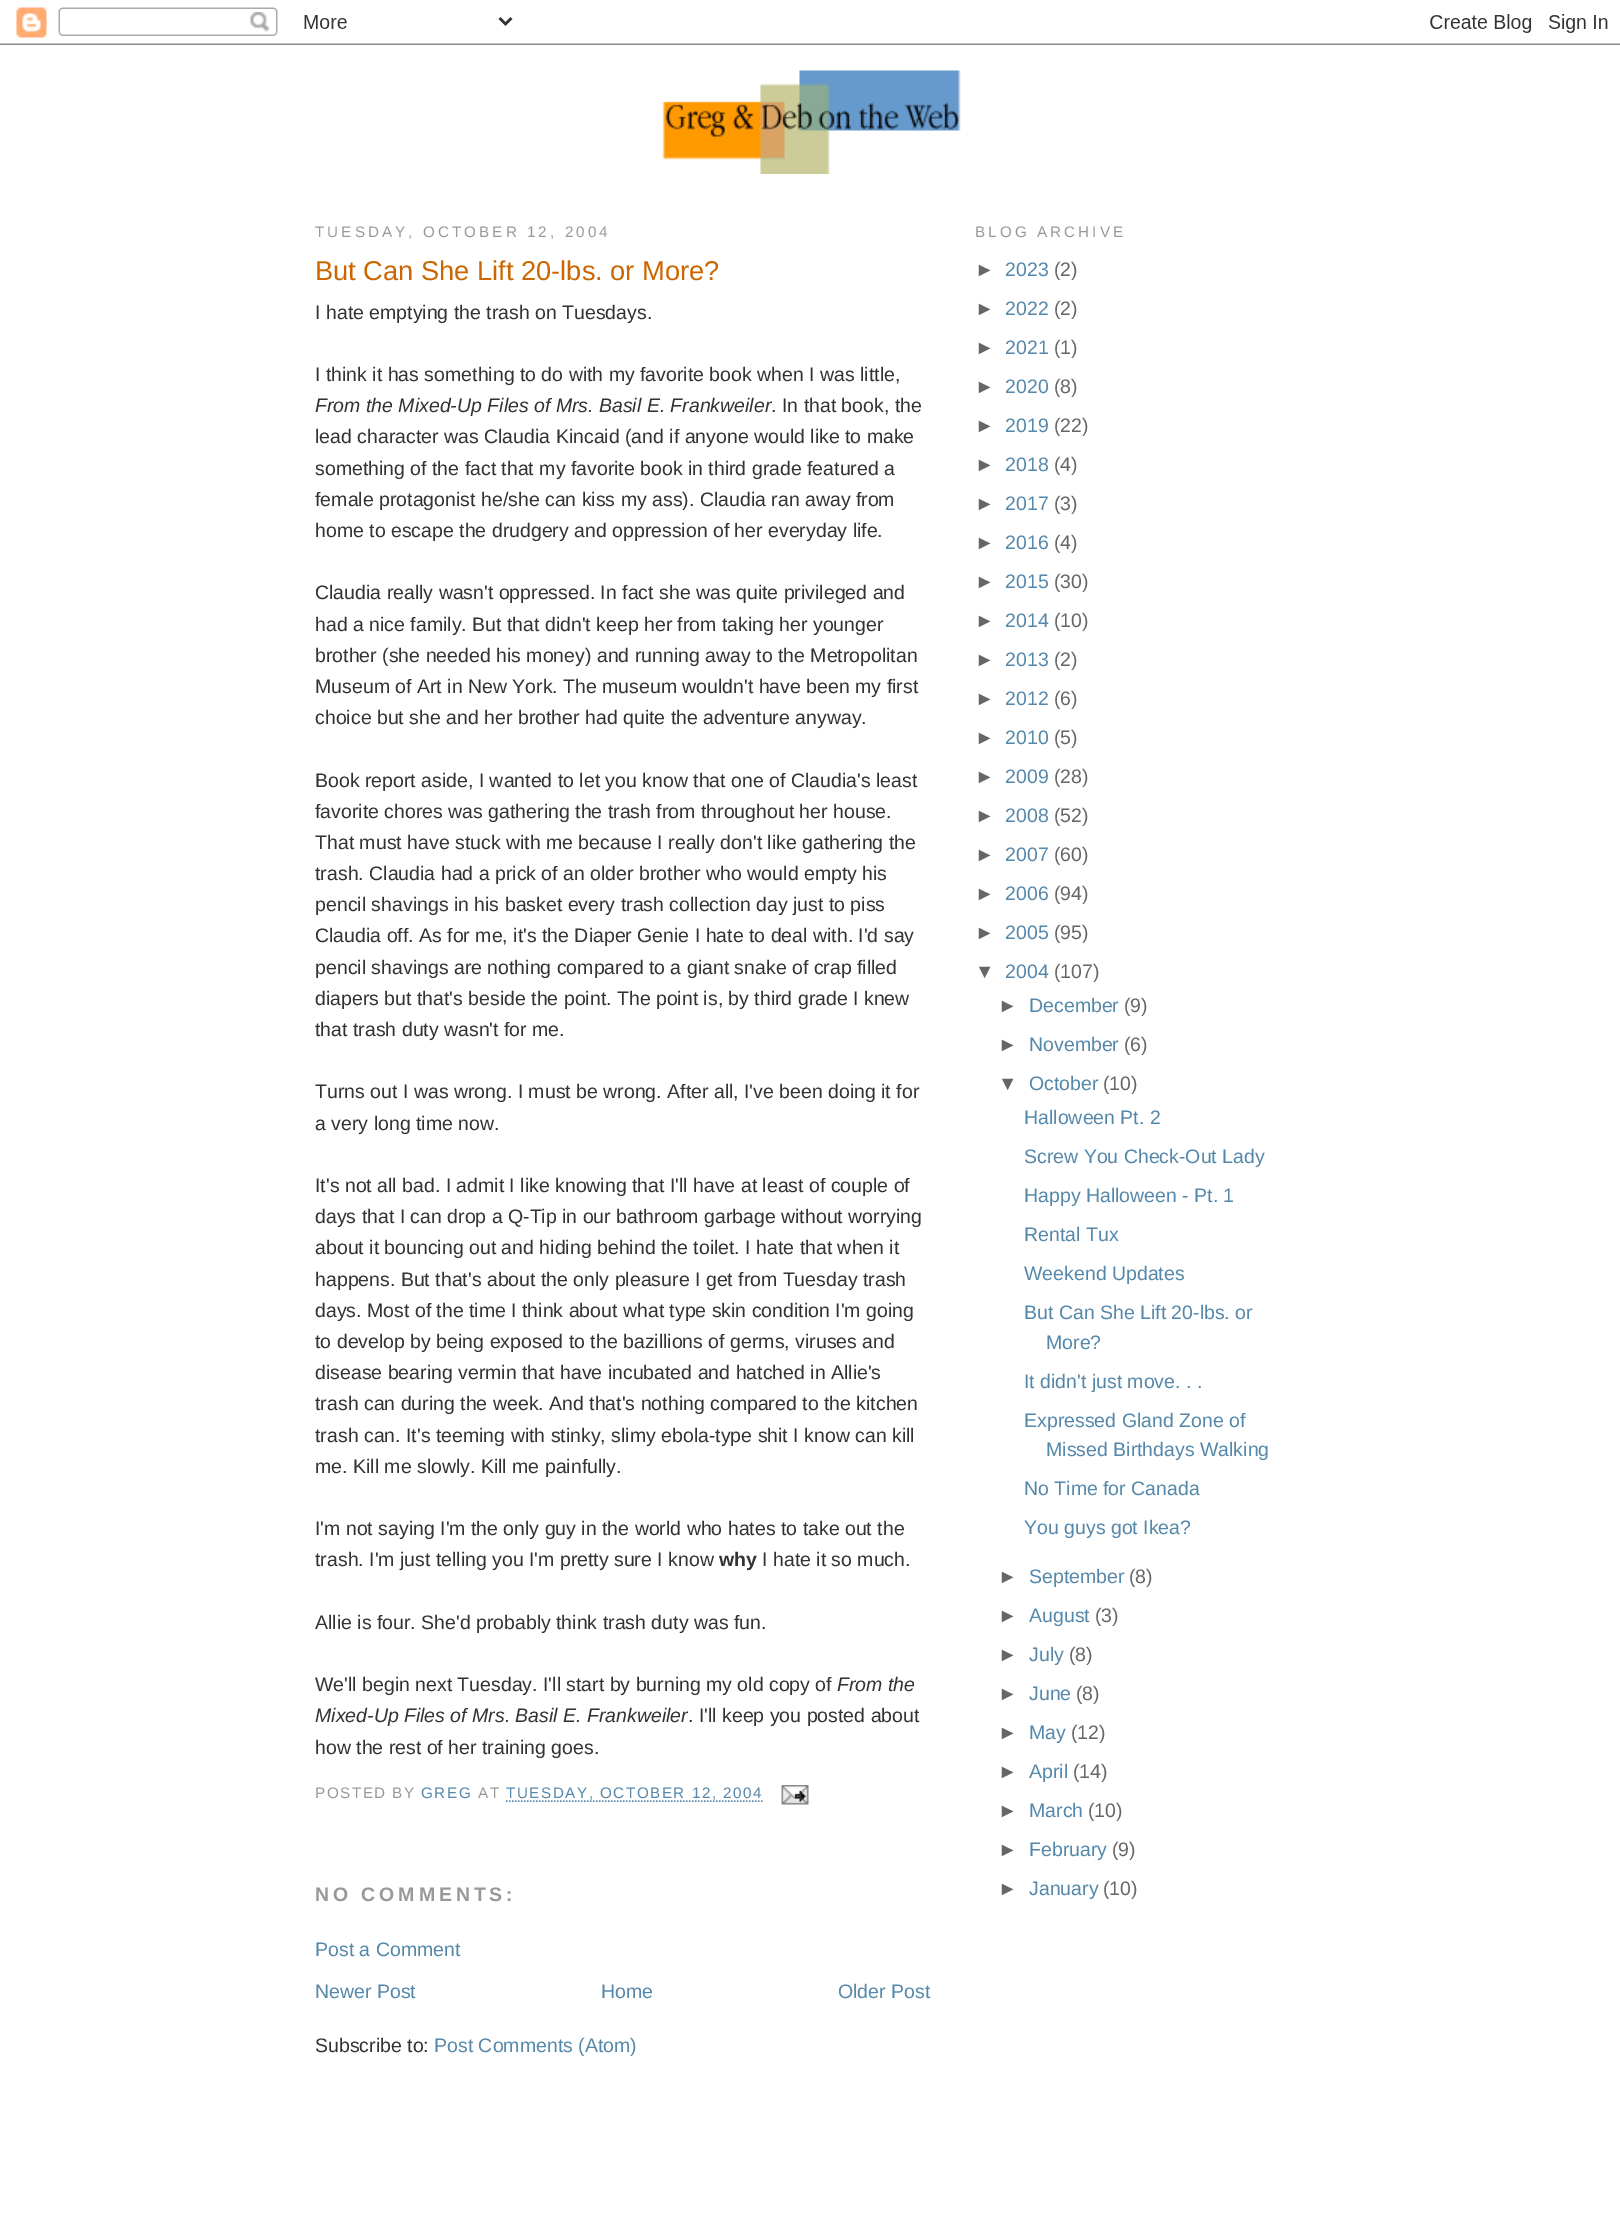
%!PS
<< /PageSize [1620 2238] >> setpagedevice
/rgb { 3 { 255 div 3 1 roll } repeat setrgbcolor } def
/font { [ exch dup neg 0 0 3 -1 roll 0 0 ] selectfont } def
/text { moveto show } def
/picture { 5 dict begin { /h /w /y /x /name } { exch def } forall
  gsave x y translate w h scale
  w h 8 [w 0 0 h 0 0] name (r) file false 3 colorimage grestore end } def
0 2238 translate 1 -1 scale
4 setmiterlimit
255 255 255 rgb
0 0 1620 2238 rectfill
(img_01.rgb) 0 7 1620 38 picture
(img_02.rgb) 662 70 299 104 picture
85 136 170 rgb
1.5 setlinewidth
[1.5 1.5] 0 setdash
506 1801 moveto 257 0 rlineto stroke
(img_03.rgb) 781 1785 28 20 picture
/LiberationSans-Regular 15.25 font
153 153 153 rgb
315 237 moveto 3.05 0 (TUESDAY, OCTOBER 12, 2004) ashow
/LiberationSans-Regular 27.25 font
204 102 0 rgb
(But Can She Lift 20-lbs. or More?) 315 280 text
/LiberationSans-Regular 19.5 font
51 51 51 rgb
(I hate emptying the trash on Tuesdays.) 315 319 text
(I think it has something to do with my favorite book when I was little,) 315 381 text
/LiberationSans-Italic 19.5 font
(From the Mixed-Up Files of Mrs. Basil E. Frankweiler) 315 412 text
/LiberationSans-Regular 19.5 font
(. In that book, the) 771 412 text
(lead character was Claudia Kincaid \(and if anyone would like to make) 315 443 text
(something of the fact that my favorite book in third grade featured a) 315 475 text
(female protagonist he/she can kiss my ass\). Claudia ran away from) 315 506 text
(home to escape the drudgery and oppression of her everyday life.) 315 537 text
(Claudia really wasn't oppressed. In fact she was quite privileged and) 315 599 text
(had a nice family. But that didn't keep her from taking her younger) 315 631 text
(brother \(she needed his money\) and running away to the Metropolitan) 315 662 text
(Museum of Art in New York. The museum wouldn't have been my first) 315 693 text
(choice but she and her brother had quite the adventure anyway.) 315 724 text
(Book report aside, I wanted to let you know that one of Claudia's least) 315 787 text
(favorite chores was gathering the trash from throughout her house.) 315 818 text
(That must have stuck with me because I really don't like gathering the) 315 849 text
(trash. Claudia had a prick of an older brother who would empty his) 315 880 text
(pencil shavings in his basket every trash collection day just to piss) 315 911 text
(Claudia off. As for me, it's the Diaper Genie I hate to deal with. I'd say) 315 942 text
(pencil shavings are nothing compared to a giant snake of crap filled) 315 974 text
(diapers but that's beside the point. The point is, by third grade I knew) 315 1005 text
(that trash duty wasn't for me.) 315 1036 text
(Turns out I was wrong. I must be wrong. After all, I've been doing it for) 315 1098 text
(a very long time now.) 315 1130 text
(It's not all bad. I admit I like knowing that I'll have at least of couple of) 315 1192 text
(days that I can drop a Q-Tip in our bathroom garbage without worrying) 315 1223 text
(about it bouncing out and hiding behind the toilet. I hate that when it) 315 1254 text
(happens. But that's about the only pleasure I get from Tuesday trash) 315 1286 text
(days. Most of the time I think about what type skin condition I'm going) 315 1317 text
(to develop by being exposed to the bazillions of germs, viruses and) 315 1348 text
(disease bearing vermin that have incubated and hatched in Allie's) 315 1379 text
(trash can during the week. And that's nothing compared to the kitchen) 315 1410 text
(trash can. It's teeming with stinky, slimy ebola-type shit I know can kill) 315 1442 text
(me. Kill me slowly. Kill me painfully.) 315 1473 text
(I'm not saying I'm the only guy in the world who hates to take out the) 315 1535 text
(trash. I'm just telling you I'm pretty sure I know) 315 1566 text
/LiberationSans-Bold 19.5 font
(why) 719 1566 text
/LiberationSans-Regular 19.5 font
(I hate it so much.) 762 1566 text
(Allie is four. She'd probably think trash duty was fun.) 315 1629 text
(We'll begin next Tuesday. I'll start by burning my old copy of) 315 1691 text
/LiberationSans-Italic 19.5 font
(From the) 837 1691 text
(Mixed-Up Files of Mrs. Basil E. Frankweiler) 315 1722 text
/LiberationSans-Regular 19.5 font
(. I'll keep you posted about) 688 1722 text
(how the rest of her training goes.) 315 1754 text
/LiberationSans-Regular 15.25 font
153 153 153 rgb
315 1798 moveto 1.5 0 (POSTED BY) ashow
85 136 170 rgb
421 1798 moveto 1.5 0 (GREG) ashow
153 153 153 rgb
478 1798 moveto 1.5 0 (AT) ashow
85 136 170 rgb
506 1798 moveto 1.5 0 (TUESDAY, OCTOBER 12, 2004) ashow
/LiberationSans-Bold 19.5 font
153 153 153 rgb
315 1901 moveto 3.9 0 (NO COMMENTS:) ashow
/LiberationSans-Regular 19.5 font
85 136 170 rgb
(Post a Comment) 315 1956 text
(Newer Post) 315 1998 text
(Home) 601 1998 text
(Older Post) 838 1998 text
51 51 51 rgb
(Subscribe to:) 315 2052 text
85 136 170 rgb
(Post Comments \(Atom\)) 434 2052 text
/LiberationSans-Regular 15.25 font
153 153 153 rgb
975 237 moveto 3.05 0 (BLOG ARCHIVE) ashow
/LiberationSans-Regular 19.5 font
102 102 102 rgb
(►) 975 276 text
85 136 170 rgb
(2023) 1005 276 text
102 102 102 rgb
(\(2\)) 1054 276 text
(►) 975 315 text
85 136 170 rgb
(2022) 1005 315 text
102 102 102 rgb
(\(2\)) 1054 315 text
(►) 975 354 text
85 136 170 rgb
(2021) 1005 354 text
102 102 102 rgb
(\(1\)) 1054 354 text
(►) 975 393 text
85 136 170 rgb
(2020) 1005 393 text
102 102 102 rgb
(\(8\)) 1054 393 text
(►) 975 432 text
85 136 170 rgb
(2019) 1005 432 text
102 102 102 rgb
(\(22\)) 1054 432 text
(►) 975 471 text
85 136 170 rgb
(2018) 1005 471 text
102 102 102 rgb
(\(4\)) 1054 471 text
(►) 975 510 text
85 136 170 rgb
(2017) 1005 510 text
102 102 102 rgb
(\(3\)) 1054 510 text
(►) 975 549 text
85 136 170 rgb
(2016) 1005 549 text
102 102 102 rgb
(\(4\)) 1054 549 text
(►) 975 588 text
85 136 170 rgb
(2015) 1005 588 text
102 102 102 rgb
(\(30\)) 1054 588 text
(►) 975 627 text
85 136 170 rgb
(2014) 1005 627 text
102 102 102 rgb
(\(10\)) 1054 627 text
(►) 975 666 text
85 136 170 rgb
(2013) 1005 666 text
102 102 102 rgb
(\(2\)) 1054 666 text
(►) 975 705 text
85 136 170 rgb
(2012) 1005 705 text
102 102 102 rgb
(\(6\)) 1054 705 text
(►) 975 744 text
85 136 170 rgb
(2010) 1005 744 text
102 102 102 rgb
(\(5\)) 1054 744 text
(►) 975 783 text
85 136 170 rgb
(2009) 1005 783 text
102 102 102 rgb
(\(28\)) 1054 783 text
(►) 975 822 text
85 136 170 rgb
(2008) 1005 822 text
102 102 102 rgb
(\(52\)) 1054 822 text
(►) 975 861 text
85 136 170 rgb
(2007) 1005 861 text
102 102 102 rgb
(\(60\)) 1054 861 text
(►) 975 900 text
85 136 170 rgb
(2006) 1005 900 text
102 102 102 rgb
(\(94\)) 1054 900 text
(►) 975 939 text
85 136 170 rgb
(2005) 1005 939 text
102 102 102 rgb
(\(95\)) 1054 939 text
(▼) 975 978 text
85 136 170 rgb
(2004) 1005 978 text
102 102 102 rgb
(\(107\)) 1054 978 text
(►) 998 1012 text
85 136 170 rgb
(December) 1029 1012 text
102 102 102 rgb
(\(9\)) 1124 1012 text
(►) 998 1051 text
85 136 170 rgb
(November) 1029 1051 text
102 102 102 rgb
(\(6\)) 1124 1051 text
(▼) 998 1090 text
85 136 170 rgb
(October) 1029 1090 text
102 102 102 rgb
(\(10\)) 1103 1090 text
85 136 170 rgb
(Halloween Pt. 2) 1024 1124 text
(Screw You Check-Out Lady) 1024 1163 text
(Happy Halloween - Pt. 1) 1024 1202 text
(Rental Tux) 1024 1241 text
(Weekend Updates) 1024 1280 text
(But Can She Lift 20-lbs. or) 1024 1319 text
(More?) 1046 1349 text
(It didn't just move. . .) 1024 1388 text
(Expressed Gland Zone of) 1024 1427 text
(Missed Birthdays Walking) 1046 1456 text
(No Time for Canada) 1024 1495 text
(You guys got Ikea?) 1024 1534 text
102 102 102 rgb
(►) 998 1583 text
85 136 170 rgb
(September) 1029 1583 text
102 102 102 rgb
(\(8\)) 1129 1583 text
(►) 998 1622 text
85 136 170 rgb
(August) 1029 1622 text
102 102 102 rgb
(\(3\)) 1095 1622 text
(►) 998 1661 text
85 136 170 rgb
(July) 1029 1661 text
102 102 102 rgb
(\(8\)) 1069 1661 text
(►) 998 1700 text
85 136 170 rgb
(June) 1029 1700 text
102 102 102 rgb
(\(8\)) 1076 1700 text
(►) 998 1739 text
85 136 170 rgb
(May) 1029 1739 text
102 102 102 rgb
(\(12\)) 1071 1739 text
(►) 998 1778 text
85 136 170 rgb
(April) 1029 1778 text
102 102 102 rgb
(\(14\)) 1073 1778 text
(►) 998 1817 text
85 136 170 rgb
(March) 1029 1817 text
102 102 102 rgb
(\(10\)) 1088 1817 text
(►) 998 1856 text
85 136 170 rgb
(February) 1029 1856 text
102 102 102 rgb
(\(9\)) 1112 1856 text
(►) 998 1895 text
85 136 170 rgb
(January) 1029 1895 text
102 102 102 rgb
(\(10\)) 1103 1895 text
showpage
